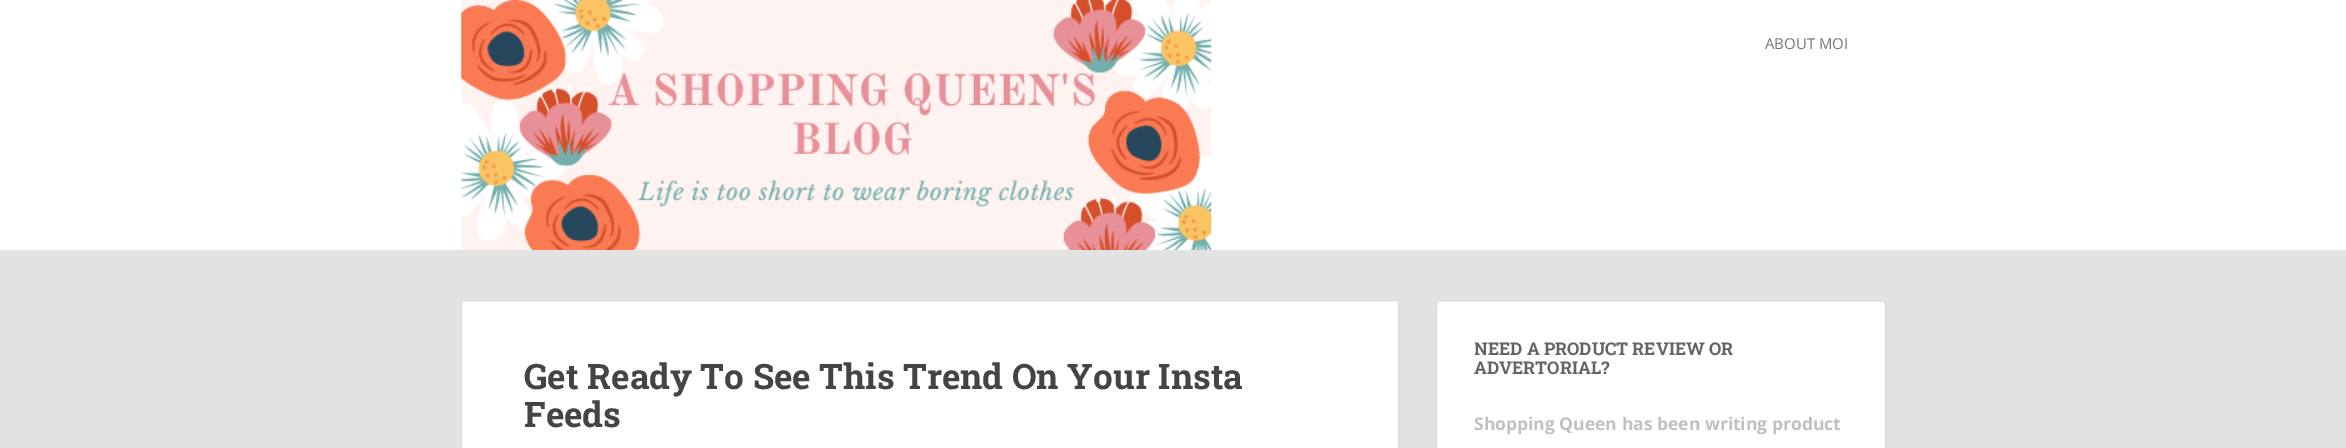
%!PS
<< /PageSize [2346 448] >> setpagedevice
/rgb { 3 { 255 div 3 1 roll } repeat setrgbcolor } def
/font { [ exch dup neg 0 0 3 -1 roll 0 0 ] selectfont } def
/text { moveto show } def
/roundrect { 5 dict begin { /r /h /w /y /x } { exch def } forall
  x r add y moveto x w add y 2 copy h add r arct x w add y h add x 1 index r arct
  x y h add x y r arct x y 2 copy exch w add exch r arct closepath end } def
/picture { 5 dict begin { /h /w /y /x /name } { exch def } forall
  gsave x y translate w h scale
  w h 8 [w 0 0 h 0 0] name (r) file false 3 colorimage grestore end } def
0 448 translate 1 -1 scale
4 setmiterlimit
226 226 226 rgb
0 0 2346 448 rectfill
255 255 255 rgb
0 0 2346 250 rectfill
(img_01.rgb) 461 0 751 250 picture
461.5 300.5 moveto 937 0 rlineto 0 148 rlineto -937 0 rlineto closepath gsave fill grestore
218 218 218 rgb
stroke
255 255 255 rgb
1436 300 450 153 5 roundrect fill
242 242 242 rgb
1441 302 moveto 440 0 rlineto 2 0 4 2 4 4 rcurveto 0 -3 -1 -5 -4 -5 rcurveto -439 0 rlineto -2 1 rlineto -1 1 rlineto -1 3 rlineto 0 -2 1 -4 3 -4 rcurveto closepath fill
218 218 218 rgb
1436.5 300.5 449 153 4.5 roundrect stroke
/OpenSans-Regular 15 font
119 118 117 rgb
(ABOUT MOI) 1765 49 text
/RobotoSlab-Bold 35 font
68 68 68 rgb
(Get Ready To See This Trend On Your Insta) 524 389 text
(Feeds) 524 427 text
gsave
1475 339 373 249 rectclip
/RobotoSlab-Bold 17.5 font
99 100 103 rgb
(NEED A PRODUCT REVIEW OR) 1474 355 text
grestore
/RobotoSlab-Bold 17.5 font
99 100 103 rgb
(ADVERTORIAL?) 1474 374 text
/OpenSans-Bold 17.5 font
193 192 192 rgb
(Shopping Queen has been writing product) 1474 430 text
showpage
